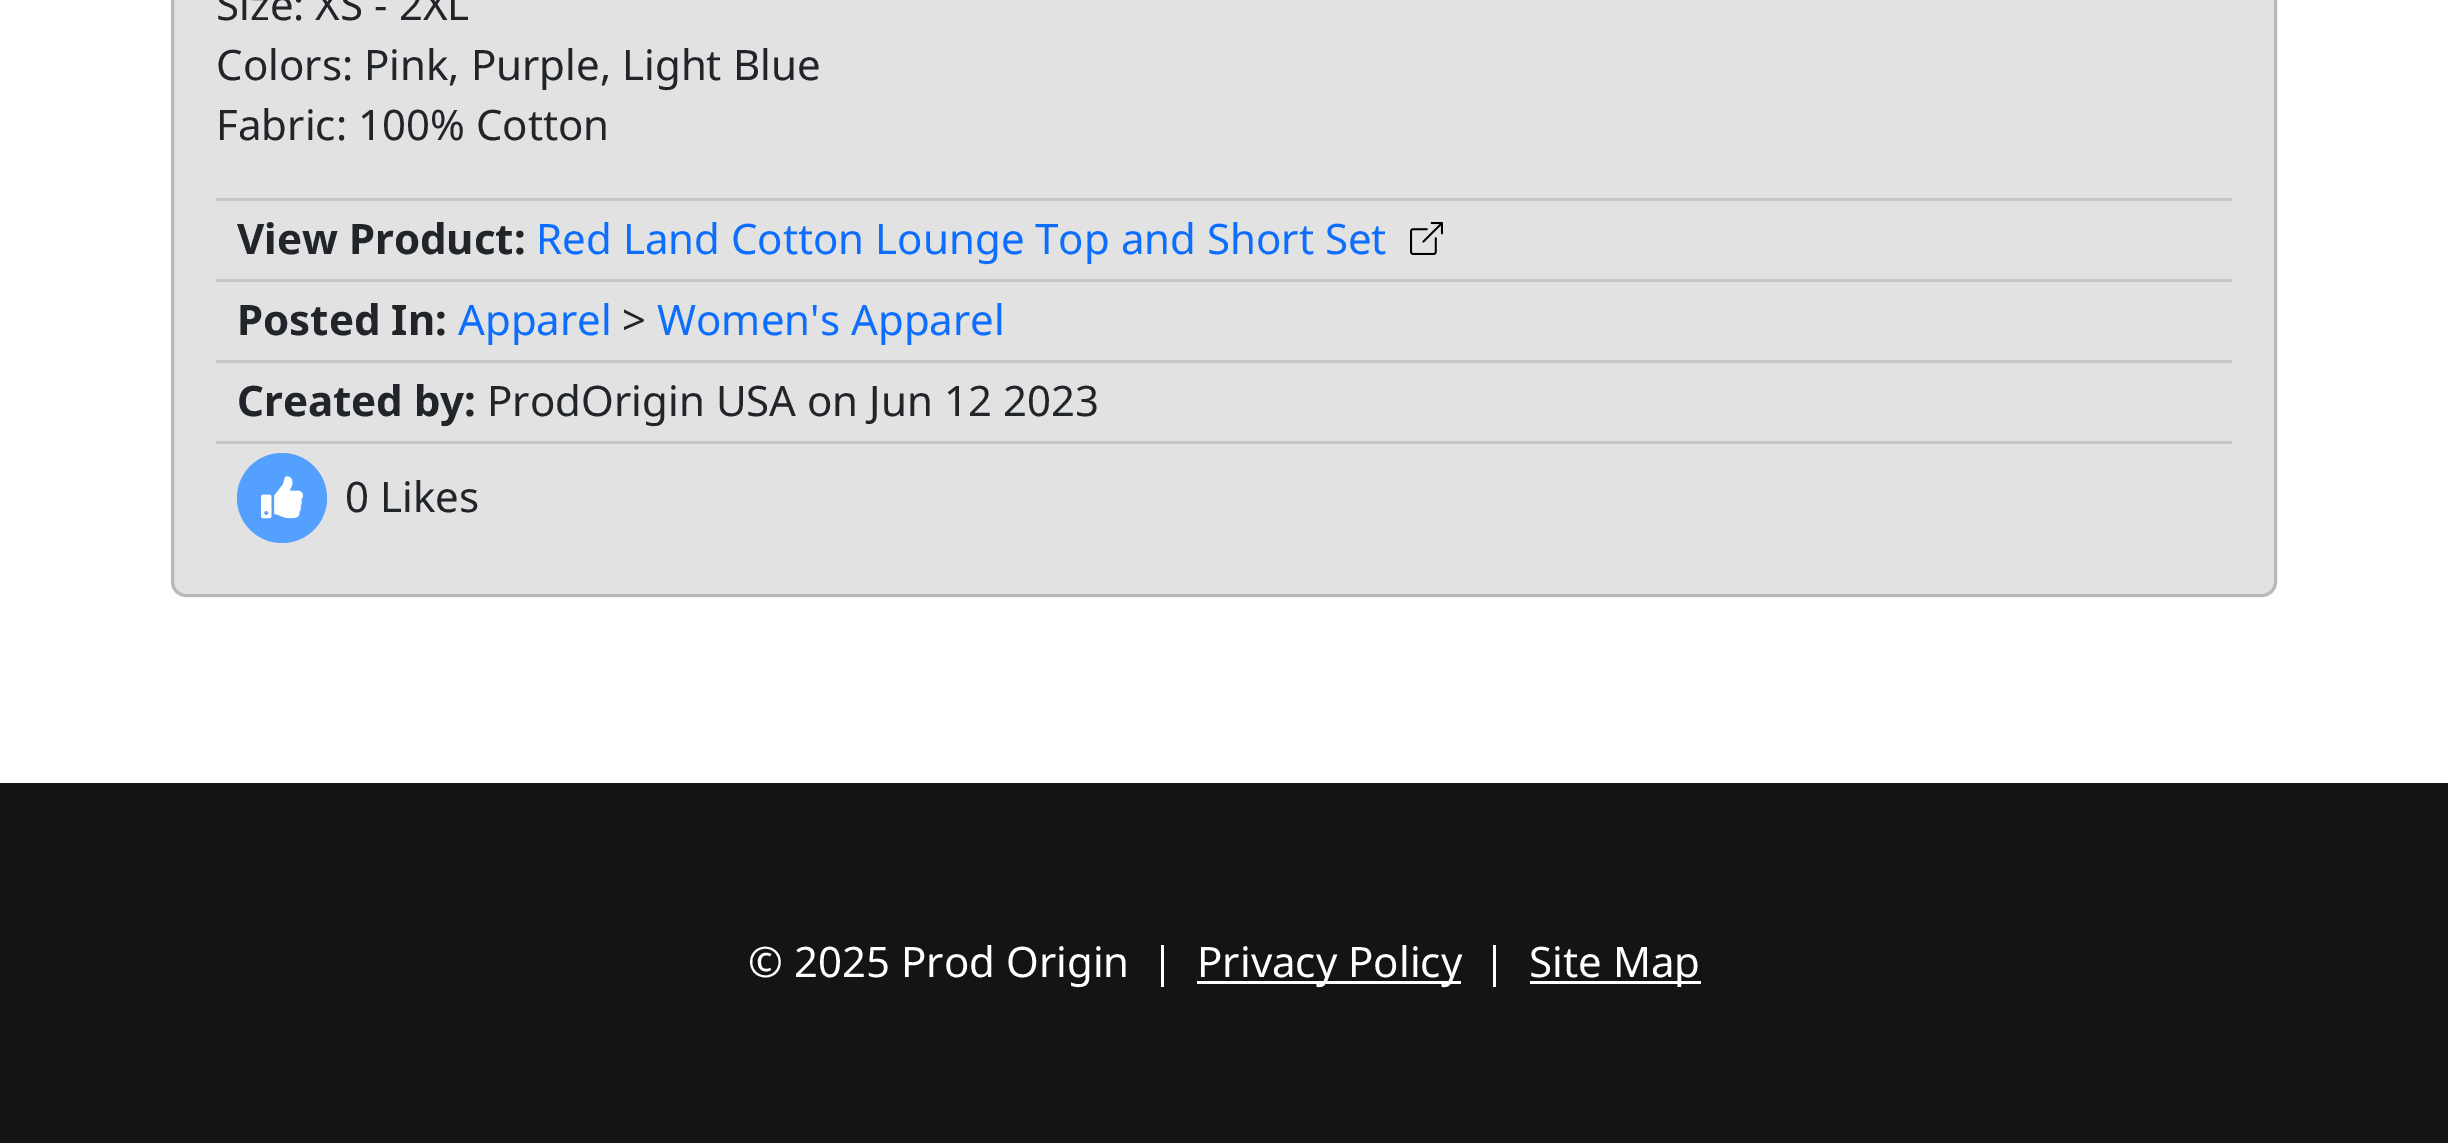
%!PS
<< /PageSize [2448 1143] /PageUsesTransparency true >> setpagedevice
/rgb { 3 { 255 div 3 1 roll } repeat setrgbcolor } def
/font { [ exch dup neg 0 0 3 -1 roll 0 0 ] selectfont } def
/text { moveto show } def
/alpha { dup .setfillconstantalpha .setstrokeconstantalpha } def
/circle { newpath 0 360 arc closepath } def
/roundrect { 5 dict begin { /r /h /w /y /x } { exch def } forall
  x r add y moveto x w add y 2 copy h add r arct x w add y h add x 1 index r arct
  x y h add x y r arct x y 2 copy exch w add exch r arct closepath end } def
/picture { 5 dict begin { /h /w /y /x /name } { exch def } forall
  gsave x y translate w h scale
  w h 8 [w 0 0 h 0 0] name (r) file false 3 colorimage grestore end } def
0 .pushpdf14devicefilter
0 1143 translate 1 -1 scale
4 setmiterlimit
255 255 255 rgb
0 0 2448 1143 rectfill
226 226 226 rgb
171 -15 2106 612 15 roundrect fill
0.18 alpha
0 0 0 rgb
3 setlinewidth
172.5 -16.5 2103 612 13.5 roundrect stroke
1 alpha
197 198 198 rgb
216 198 2016 3 rectfill
(img_01.rgb) 1410 222 33 33 picture
216 279 2016 3 rectfill
216 360 2016 3 rectfill
216 441 2016 3 rectfill
84 160 255 rgb
282 498 45 circle fill
(img_02.rgb) 261 476 42 43 picture
20 20 20 rgb
0 783 2448 360 rectfill
255 255 255 rgb
1197 981 264 3 rectfill
1530 981 171 3 rectfill
/NotoSans-Regular 42 font
33 37 41 rgb
(Size: XS - 2XL) 216 20 text
(Colors: Pink, Purple, Light Blue) 216 80 text
(Fabric: 100% Cotton) 216 140 text
/NotoSans-Bold 42 font
(View Product:) 237 254 text
/NotoSans-Regular 42 font
13 110 253 rgb
(Red Land Cotton Lounge Top and Short Set) 536 254 text
/NotoSans-Bold 42 font
33 37 41 rgb
(Posted In:) 237 335 text
/NotoSans-Regular 42 font
13 110 253 rgb
(Apparel) 458 335 text
33 37 41 rgb
(>) 622 335 text
13 110 253 rgb
(Women's Apparel) 657 335 text
/NotoSans-Bold 42 font
33 37 41 rgb
(Created by:) 237 416 text
/NotoSans-Regular 42 font
(ProdOrigin USA on Jun 12 2023) 487 416 text
(0 Likes) 345 512 text
255 255 255 rgb
(© 2025 Prod Origin  |) 748 977 text
(Privacy Policy) 1197 977 text
(|) 1483 977 text
(Site Map) 1529 977 text
.poppdf14devicefilter showpage
